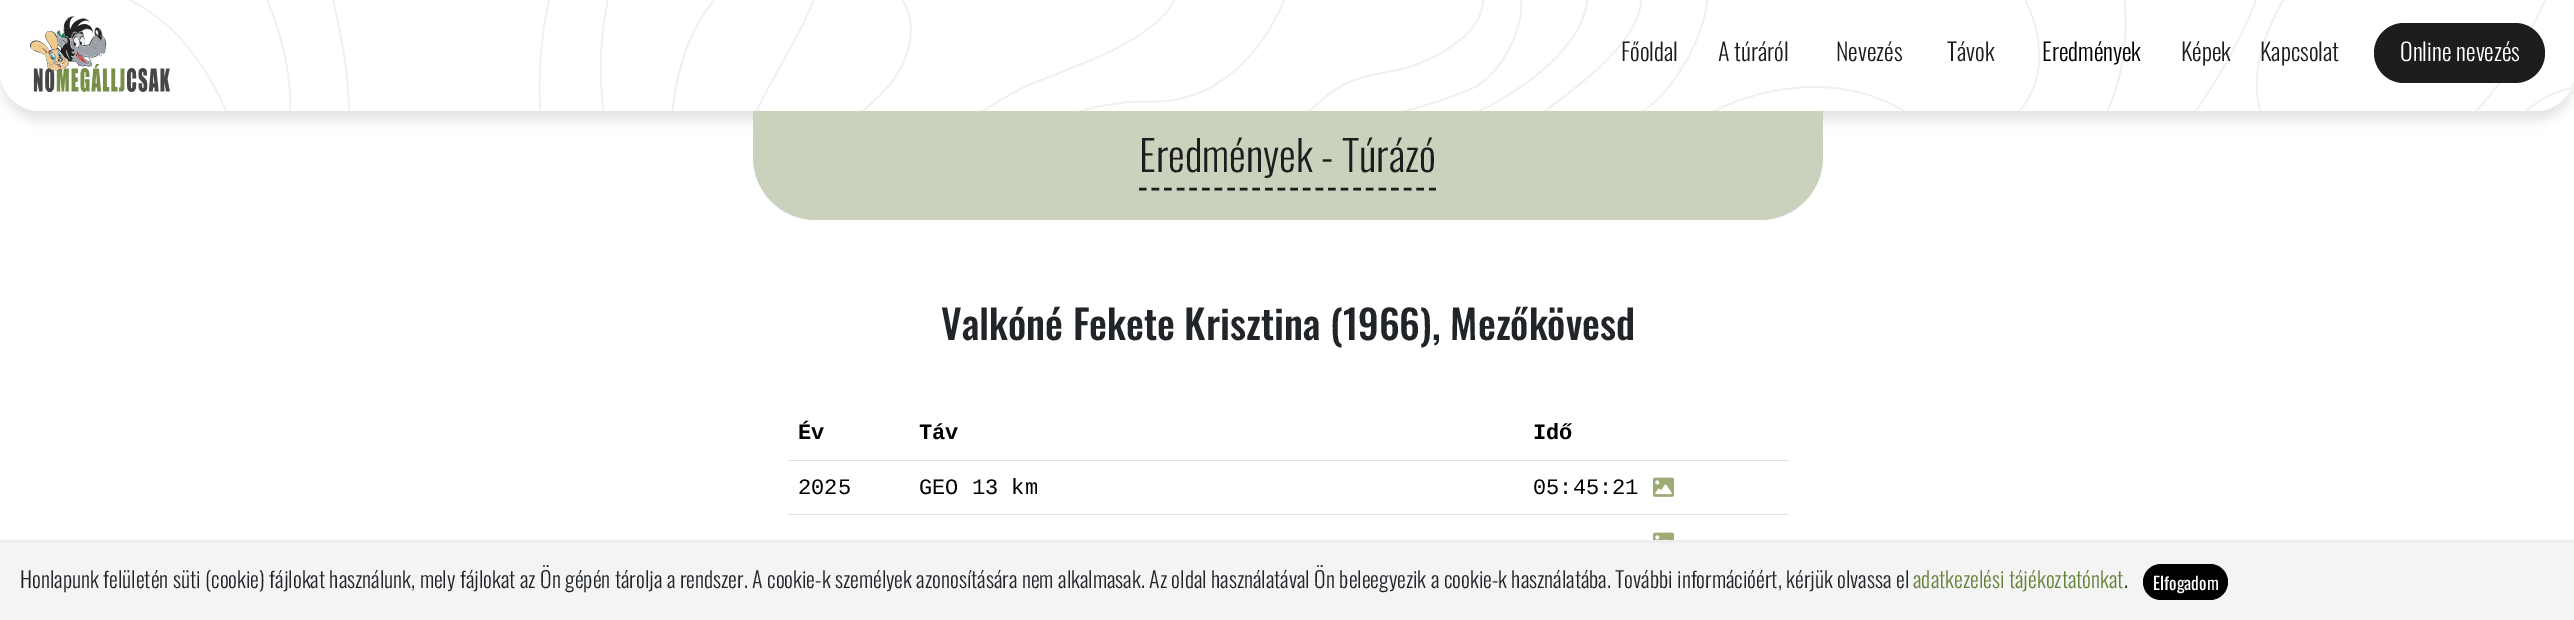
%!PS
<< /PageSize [2574 620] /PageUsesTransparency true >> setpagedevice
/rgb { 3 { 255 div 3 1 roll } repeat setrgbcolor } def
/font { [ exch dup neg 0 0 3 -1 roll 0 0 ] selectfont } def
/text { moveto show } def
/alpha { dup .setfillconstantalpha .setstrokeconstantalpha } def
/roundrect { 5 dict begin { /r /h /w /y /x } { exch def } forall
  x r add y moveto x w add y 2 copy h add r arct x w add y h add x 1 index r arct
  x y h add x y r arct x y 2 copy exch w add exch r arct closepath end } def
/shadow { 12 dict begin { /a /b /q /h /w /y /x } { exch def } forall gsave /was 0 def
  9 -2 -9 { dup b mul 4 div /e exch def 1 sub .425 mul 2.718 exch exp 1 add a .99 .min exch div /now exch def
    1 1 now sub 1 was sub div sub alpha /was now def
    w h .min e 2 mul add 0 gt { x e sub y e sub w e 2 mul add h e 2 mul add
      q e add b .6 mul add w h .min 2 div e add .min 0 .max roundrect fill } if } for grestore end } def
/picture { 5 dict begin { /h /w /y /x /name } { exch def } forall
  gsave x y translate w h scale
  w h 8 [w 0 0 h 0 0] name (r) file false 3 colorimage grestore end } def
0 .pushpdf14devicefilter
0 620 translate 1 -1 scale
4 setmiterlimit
255 255 255 rgb
0 0 2574 620 rectfill
10 10 10 rgb
0 10 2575 111 40 5 0.1 shadow
255 255 255 rgb
0 0 moveto 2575 0 rlineto 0 71 rlineto 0 22 -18 40 -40 40 rcurveto -2495 0 rlineto -22 0 -40 -18 -40 -40 rcurveto closepath fill
(img_01.rgb) 128 0 2444 111 picture
(img_02.rgb) 30 16 140 76 picture
29 29 29 rgb
2374 23 171 60 30 roundrect fill
202 209 189 rgb
753 111 moveto 1070 0 rlineto 0 46 rlineto 0 35 -28 63 -63 63 rcurveto -944 0 rlineto -35 0 -63 -28 -63 -63 rcurveto closepath fill
29 29 29 rgb
2.5 setlinewidth
[7.5 5.11] 0 setdash
1139 189 moveto 297 0 rlineto stroke
222 226 230 rgb
788 460 1001 1 rectfill
788 514 1001 1 rectfill
(img_03.rgb) 1653 477 21 20 picture
(img_04.rgb) 1653 532 21 8 picture
244 244 244 rgb
0 543 2574 77 rectfill
238 238 238 rgb
0 540 2574 3 rectfill
0 0 0 rgb
2143 564 85 36 18 roundrect fill
/Oswald-Light 24 font
29 29 29 rgb
(Főoldal) 1621 61 text
(A túráról) 1718 61 text
(Nevezés) 1836 61 text
(Távok) 1947 61 text
0 0 0 rgb
(Eredmények) 2042 61 text
29 29 29 rgb
(Képek) 2181 61 text
(Kapcsolat) 2260 61 text
255 255 255 rgb
(Online nevezés) 2400 61 text
/Oswald-Light 42 font
29 29 29 rgb
(Eredmények - Túrázó) 1139 172 text
/Oswald-Medium 40 font
33 37 41 rgb
(Valkóné Fekete Krisztina \(1966\), Mezőkövesd) 941 340 text
/LiberationMono-Bold 22 font
0 0 0 rgb
(Év) 798 439 text
(Táv) 919 439 text
(Idő) 1533 439 text
/LiberationMono-Regular 22 font
(2025) 798 494 text
(GEO 13 km) 919 494 text
(05:45:21) 1533 494 text
/Oswald-Light 22 font
33 37 41 rgb
(Honlapunk felületén süti \(cookie\) fájlokat használunk, mely fájlokat az Ön gépén tárolja a rendszer. A cookie-k személyek azonosítására nem alkalmasak. Az oldal használatával Ön beleegyezik a cookie-k használatába. További információért, kérjük olvassa el) 20 588 text
101 130 58 rgb
(adatkezelési tájékoztatónkat) 1913 588 text
33 37 41 rgb
(.) 2124 588 text
/Oswald-Regular 17.5 font
255 255 255 rgb
(Elfogadom) 2153 590 text
.poppdf14devicefilter showpage
